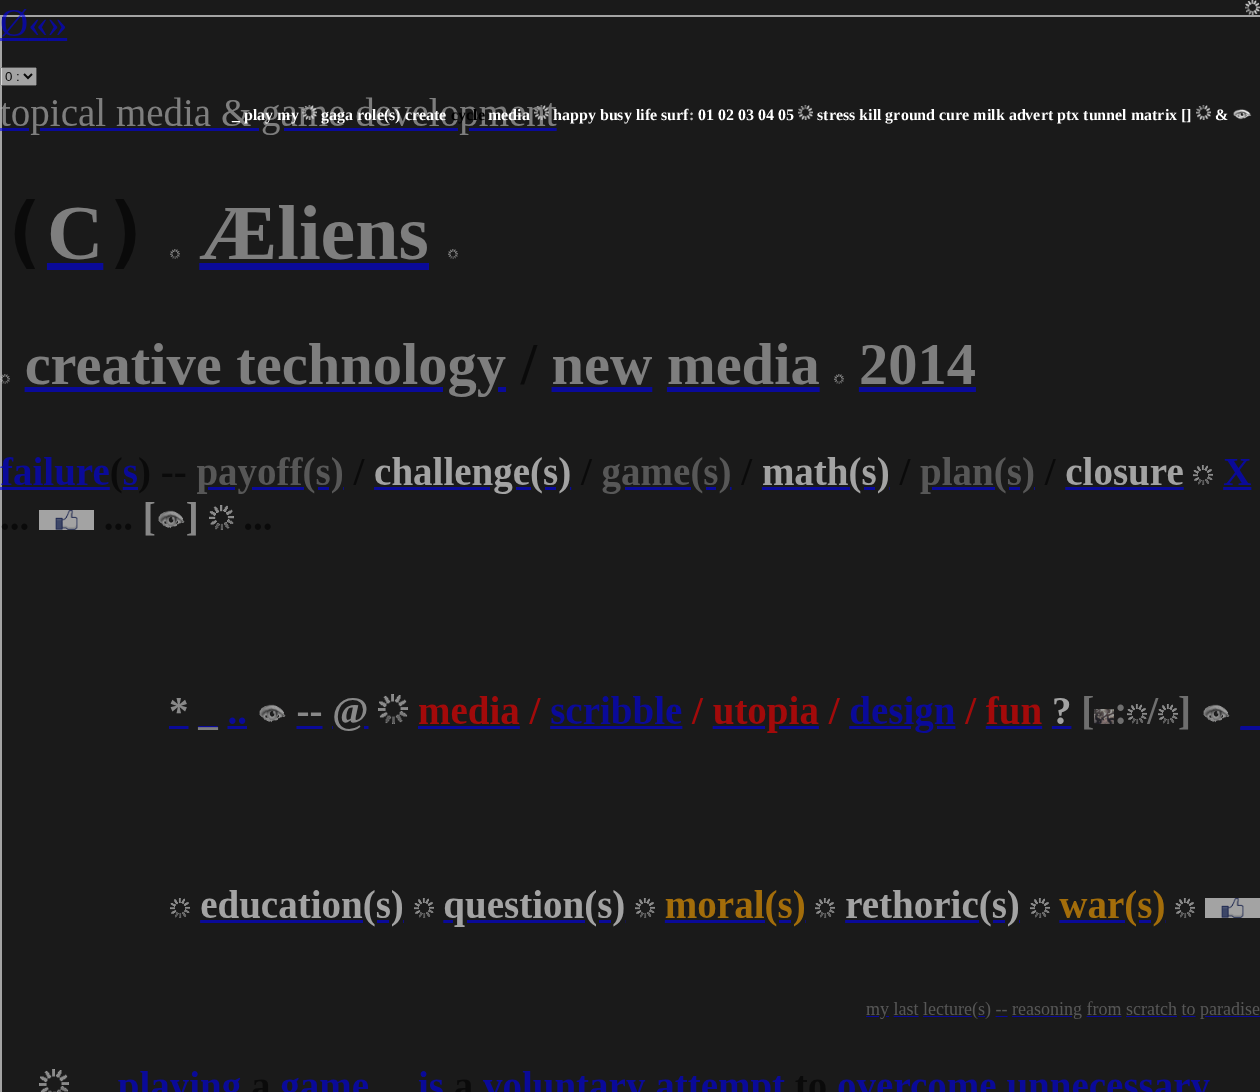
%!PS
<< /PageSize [1260 1092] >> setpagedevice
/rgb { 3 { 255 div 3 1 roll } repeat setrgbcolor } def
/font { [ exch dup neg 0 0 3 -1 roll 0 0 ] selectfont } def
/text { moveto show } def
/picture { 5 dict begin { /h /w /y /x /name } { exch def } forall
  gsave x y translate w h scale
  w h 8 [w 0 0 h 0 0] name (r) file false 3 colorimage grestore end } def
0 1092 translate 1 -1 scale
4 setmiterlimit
255 255 255 rgb
0 0 1260 1092 rectfill
(img_01.rgb) 0 0 1260 1092 picture
(img_02.rgb) 0 9 1260 1083 picture
(img_03.rgb) 302 105 15 15 picture
(img_04.rgb) 534 105 15 15 picture
(img_05.rgb) 798 105 15 15 picture
(img_05.rgb) 1196 105 15 15 picture
(img_06.rgb) 1233 109 19 11 picture
/LiberationSerif-Bold 16 font
(_ play my) 232 120 text
(gaga role\(s\) create) 321 120 text
0 0 0 rgb
(cycle) 451 120 text
255 255 255 rgb
(media) 488 120 text
(happy busy life surf) 553 120 text
192 192 192 rgb
(:) 689 120 text
255 255 255 rgb
(01 02 03 04 05) 698 120 text
(stress kill ground cure milk advert ptx tunnel matrix []) 817 120 text
(&) 1215 120 text
showpage
